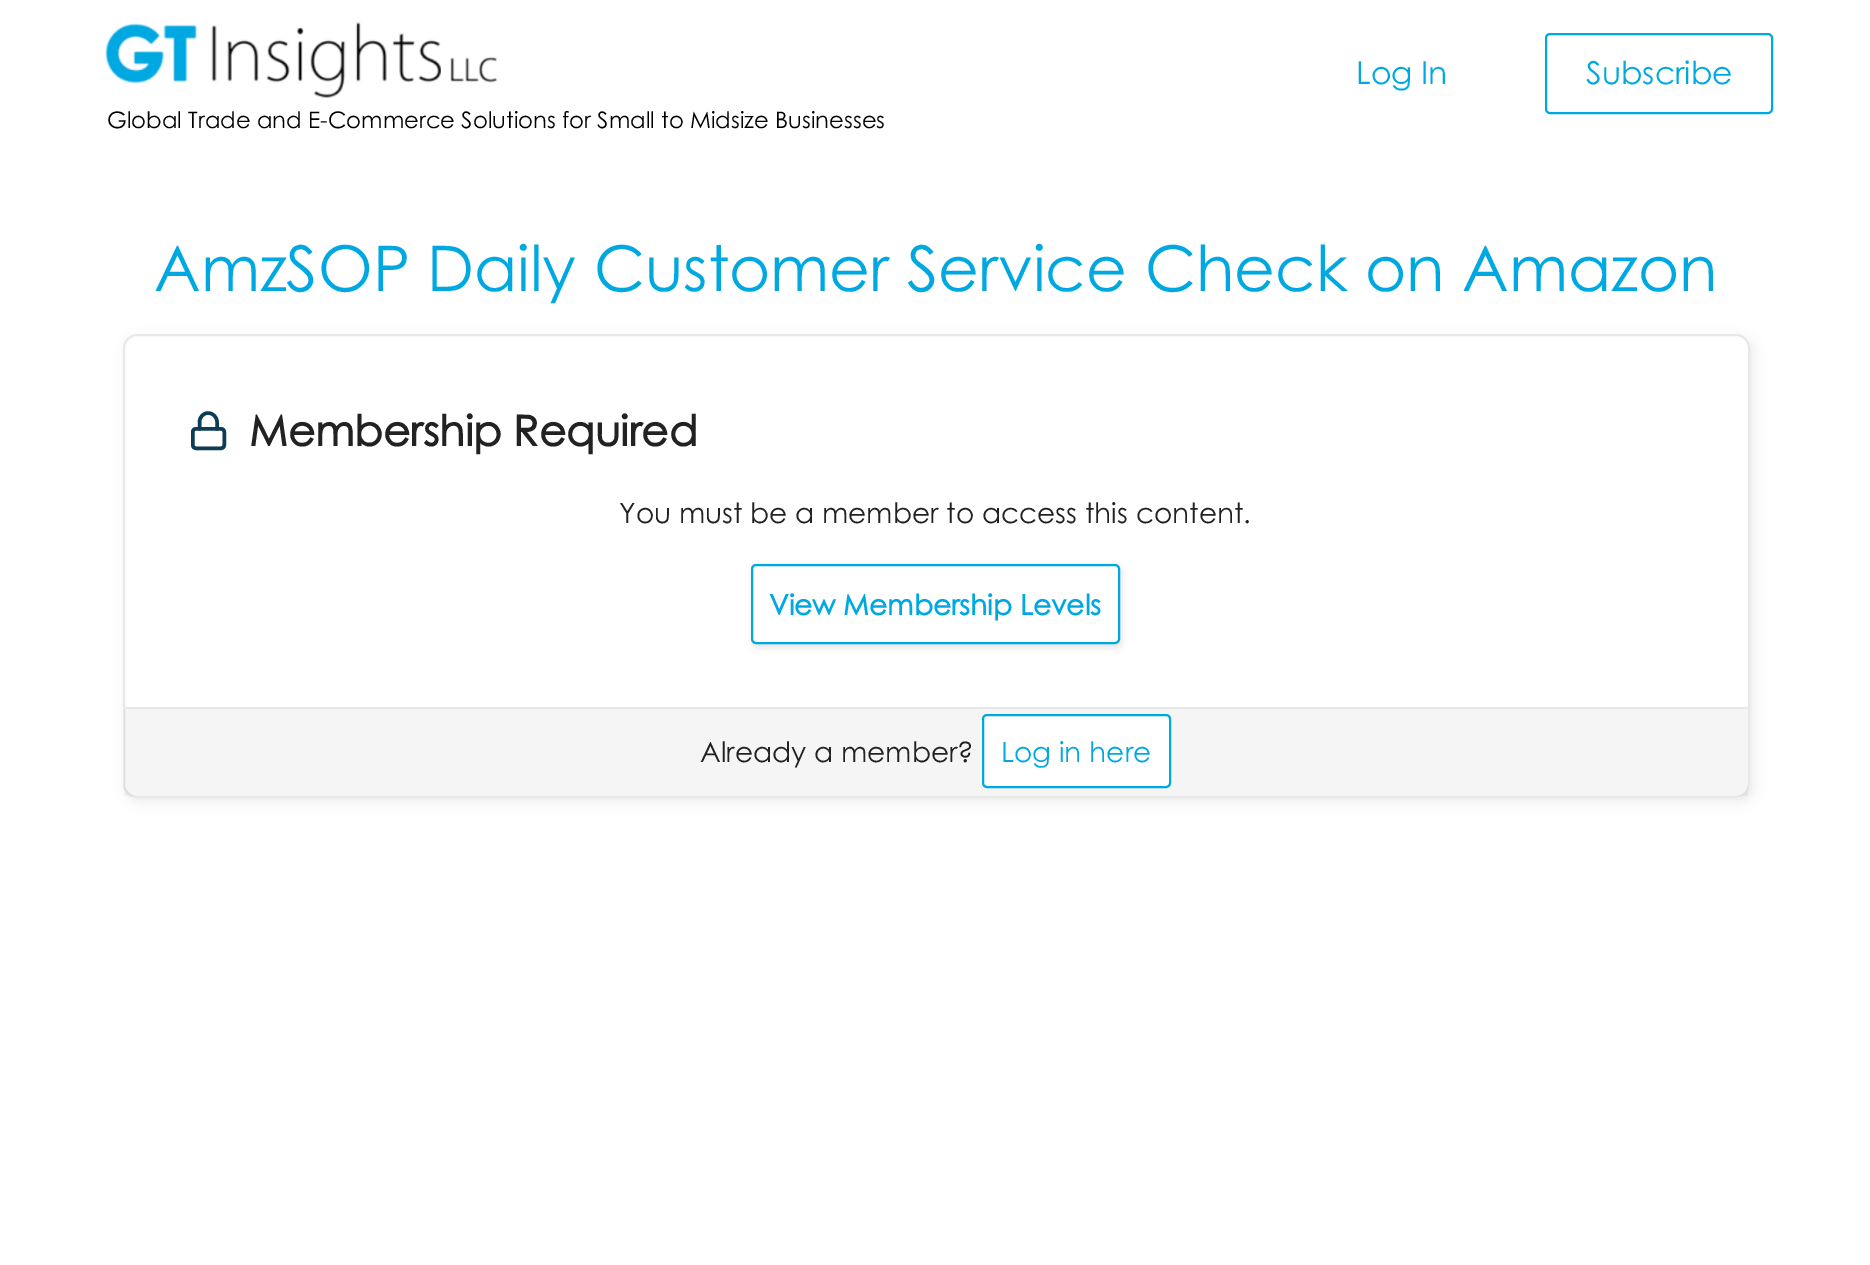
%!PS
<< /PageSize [1870 1265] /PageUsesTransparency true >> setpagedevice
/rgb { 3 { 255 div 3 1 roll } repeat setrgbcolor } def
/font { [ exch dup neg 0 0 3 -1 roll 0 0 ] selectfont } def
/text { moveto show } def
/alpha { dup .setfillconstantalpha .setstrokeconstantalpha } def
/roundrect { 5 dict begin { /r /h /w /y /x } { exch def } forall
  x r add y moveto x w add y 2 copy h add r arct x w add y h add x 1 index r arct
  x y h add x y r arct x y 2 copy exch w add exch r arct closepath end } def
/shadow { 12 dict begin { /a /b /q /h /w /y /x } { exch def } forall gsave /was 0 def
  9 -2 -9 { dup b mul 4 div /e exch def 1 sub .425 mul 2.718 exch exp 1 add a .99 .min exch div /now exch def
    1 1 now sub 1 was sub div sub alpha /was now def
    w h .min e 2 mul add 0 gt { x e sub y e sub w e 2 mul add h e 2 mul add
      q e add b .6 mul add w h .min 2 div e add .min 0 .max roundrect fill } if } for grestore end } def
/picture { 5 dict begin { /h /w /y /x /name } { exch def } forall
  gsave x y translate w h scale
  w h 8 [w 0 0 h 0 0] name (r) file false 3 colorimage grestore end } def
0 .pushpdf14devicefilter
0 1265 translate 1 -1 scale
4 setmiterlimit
255 255 255 rgb
0 0 1870 1265 rectfill
0 168 225 rgb
2 setlinewidth
1546 34 226 79 4 roundrect stroke
(img_01.rgb) 105 22 393 76 picture
0 0 0 rgb
126 338 1628 464 14 6 0.07 shadow
255 255 255 rgb
124 335 1625 462 13 roundrect gsave fill grestore
232 232 232 rgb
stroke
12 61 84 rgb
3.5 setlinewidth
192.75 428.75 31.5 19.5 3.25 roundrect stroke
1 setlinecap
1 setlinejoin
199.5 429 moveto 0 -7 rlineto 0 -5 4 -9 8.5 -9 rcurveto 5 0 9 4 9 9 rcurveto 0 7 rlineto stroke
0 0 0 rgb
753 567 369 81 5 3.5 0.1 shadow
255 255 255 rgb
752 565 367 78 4 roundrect gsave fill grestore
0 168 225 rgb
2 setlinewidth
0 setlinecap
0 setlinejoin
stroke
0.04 alpha
0 0 0 rgb
124 709 1624 87 rectfill
1 alpha
232 232 232 rgb
124 707 1624 2 rectfill
255 255 255 rgb
983 715 187 72 4 roundrect gsave fill grestore
0 168 225 rgb
stroke
/CenturyGothic-Regular 31.5 font
(Log In) 1356 84 text
(Subscribe) 1586 84 text
/CenturyGothic-Regular 22.75 font
0 0 0 rgb
(Global Trade and E-Commerce Solutions for Small to Midsize Businesses) 107 128 text
/CenturyGothic-Regular 63 font
0 168 225 rgb
(AmzSOP Daily Customer Service Check on Amazon) 154 291 text
/CenturyGothic-Bold 42 font
34 34 34 rgb
(Membership Required) 249 446 text
/CenturyGothic-Regular 28 font
(You must be a member to access this content.) 619 523 text
/CenturyGothic-Bold 28 font
0 168 225 rgb
(View Membership Levels) 769 615 text
/CenturyGothic-Regular 28 font
34 34 34 rgb
(Already a member?) 700 762 text
0 168 225 rgb
(Log in here) 1001 762 text
.poppdf14devicefilter showpage
